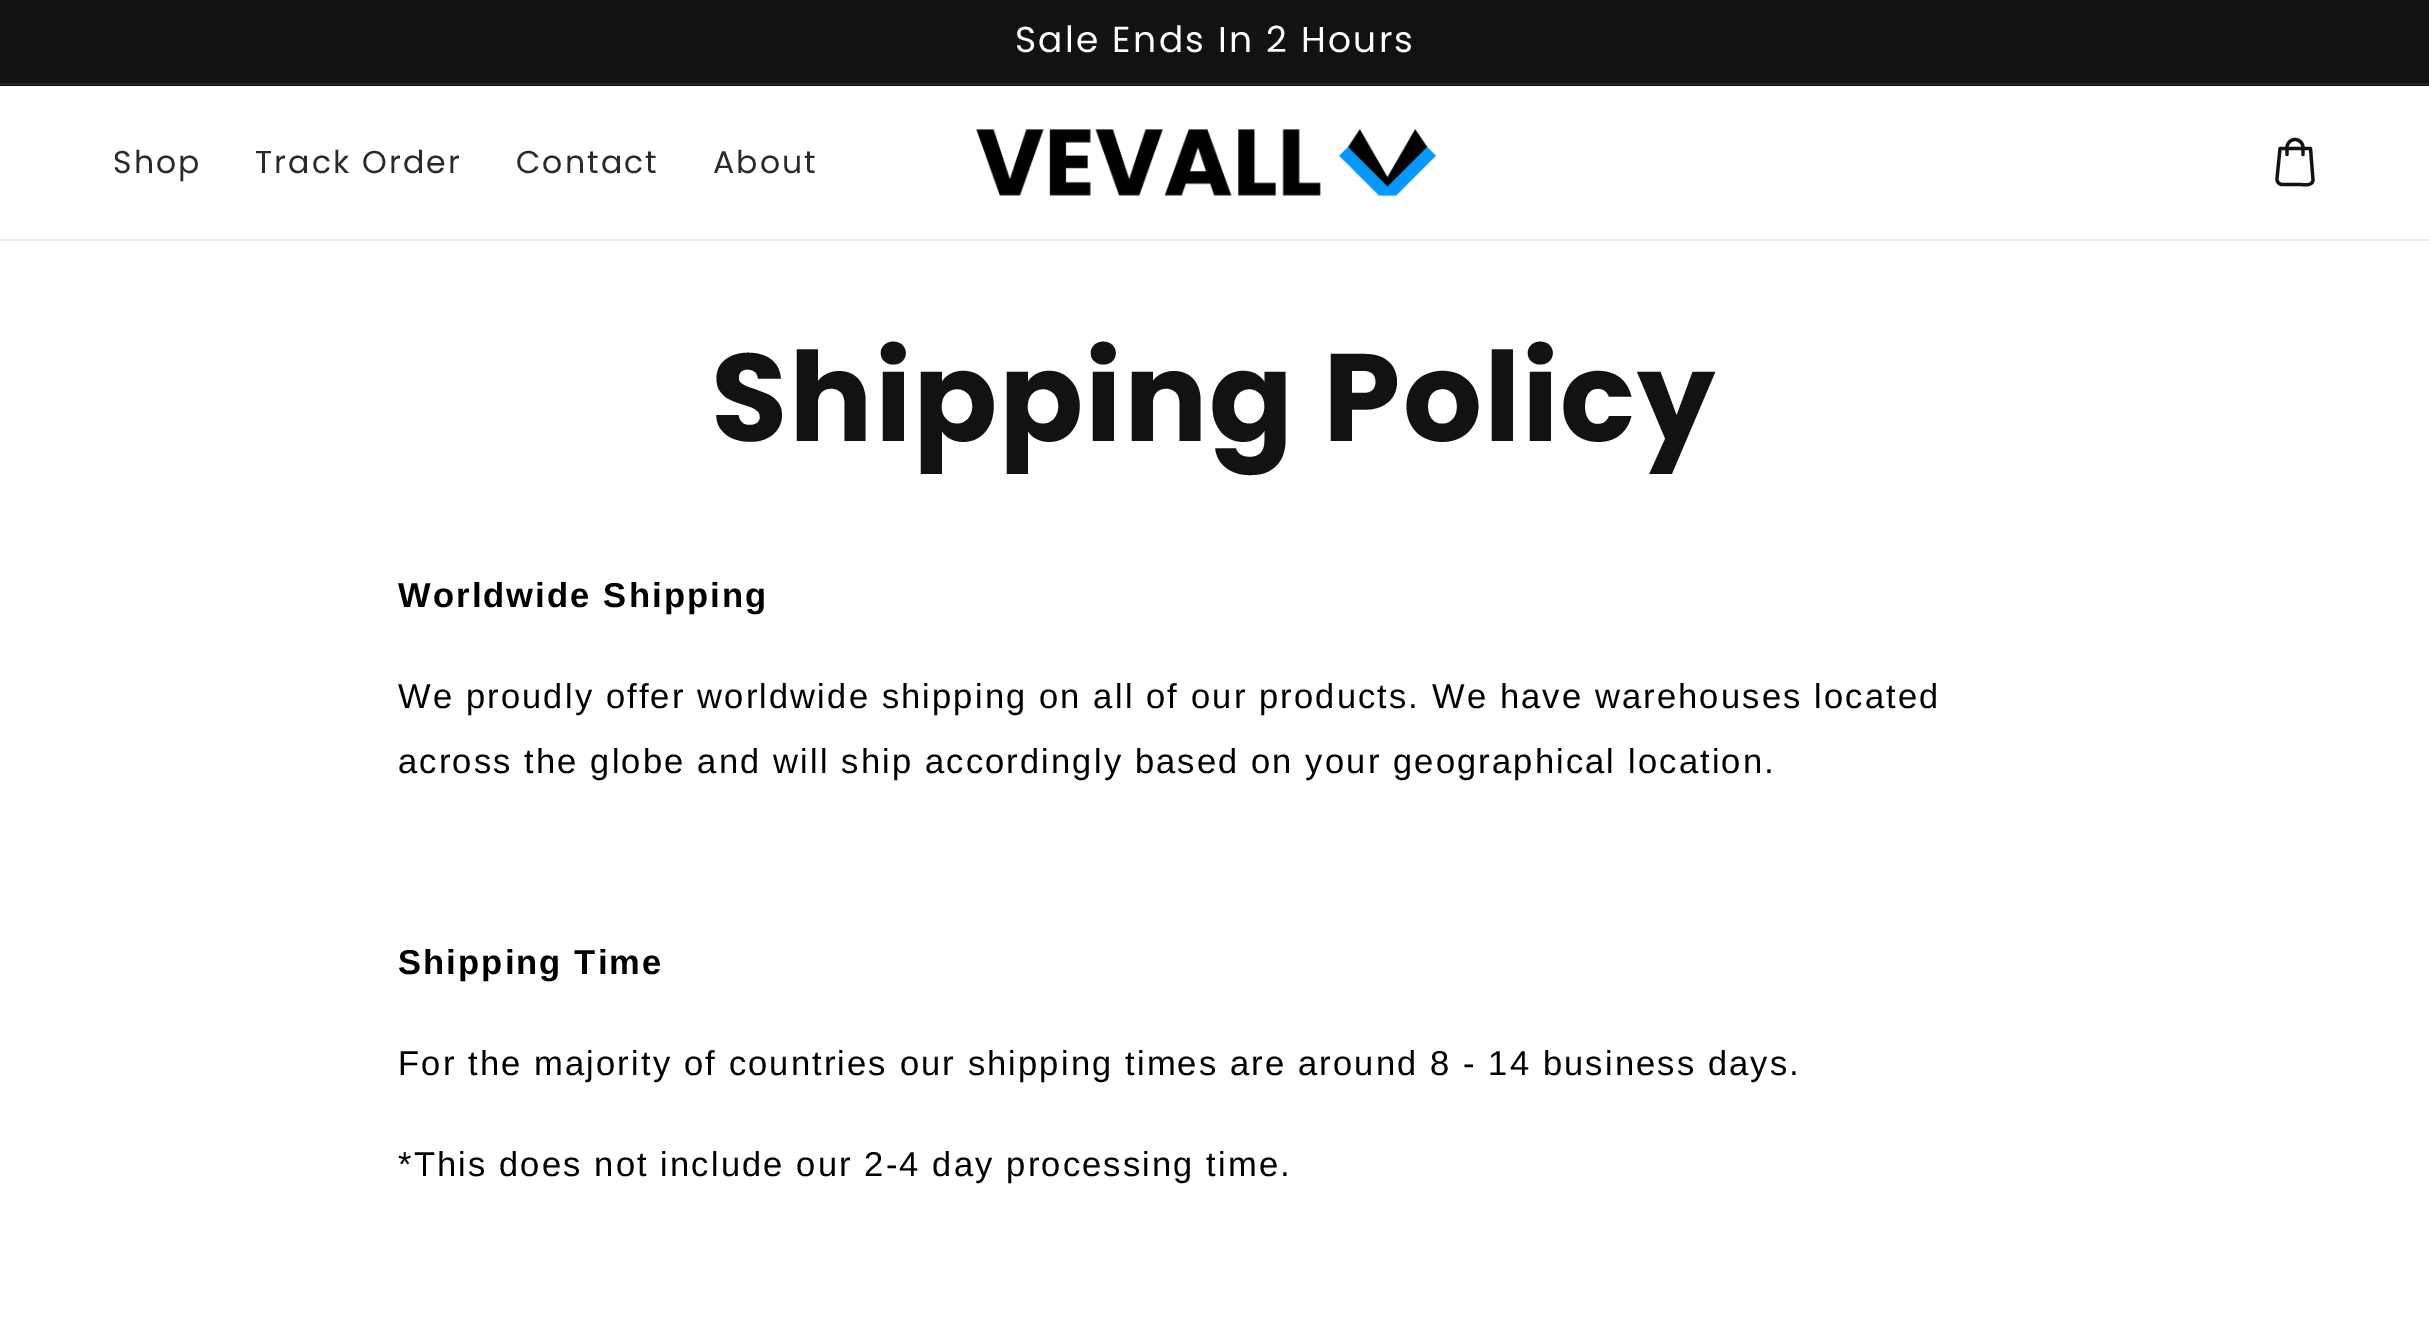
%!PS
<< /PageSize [2429 1343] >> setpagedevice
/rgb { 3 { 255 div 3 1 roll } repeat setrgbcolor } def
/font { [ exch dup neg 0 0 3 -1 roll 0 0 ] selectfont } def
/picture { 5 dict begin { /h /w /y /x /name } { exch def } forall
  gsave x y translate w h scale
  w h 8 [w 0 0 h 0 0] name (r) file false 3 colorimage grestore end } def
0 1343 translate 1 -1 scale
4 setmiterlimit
255 255 255 rgb
0 0 2429 1343 rectfill
18 18 18 rgb
0 0 2429 86 rectfill
37 37 37 rgb
0 83 2429 2 rectfill
236 236 236 rgb
0 239 2429 2 rectfill
(img_01.rgb) 976 128 461 69 picture
18 18 18 rgb
3.2 setlinewidth
1 setlinecap
1 setlinejoin
2280 148.5 moveto 30.5 0 rlineto 2.5 31.5 rlineto -0.5 6.5 -9.5 4.5 -14 4.5 rcurveto -17 0 rlineto -3 0 -5.5 -3 -5 -6 rcurveto closepath 2287 154.5 moveto 0 -7 rlineto 0 -4.5 3.5 -8 8 -8 rcurveto 4.5 0 8 3.5 8 8 rcurveto 0 7 rlineto stroke
/Poppins-Regular 36 font
255 255 255 rgb
1015 52 moveto 2.25 0 (Sale Ends In 2 Hours) ashow
/Poppins-Regular 31.5 font
42 42 42 rgb
113 173 moveto 2.15 0 (Shop) ashow
255 173 moveto 2.15 0 (Track Order) ashow
516 173 moveto 2.15 0 (Contact) ashow
713 173 moveto 2.15 0 (About) ashow
/Poppins-Bold 124.25 font
18 18 18 rgb
711 441 moveto 1.75 0 (Shipping Policy) ashow
/LiberationSans-Bold 34.5 font
0 0 0 rgb
398 607 moveto 2.15 0 (Worldwide Shipping) ashow
/LiberationSans-Regular 34.5 font
398 708 moveto 2.15 0 (We proudly offer worldwide shipping on all of our products. We have warehouses located) ashow
398 773 moveto 2.15 0 (across the globe and will ship accordingly based on your geographical location.) ashow
/LiberationSans-Bold 34.5 font
398 974 moveto 2.15 0 (Shipping Time) ashow
/LiberationSans-Regular 34.5 font
398 1075 moveto 2.15 0 (For the majority of countries our shipping times are around 8 - 14 business days.) ashow
398 1176 moveto 2.15 0 (*This does not include our 2-4 day processing time.) ashow
showpage
